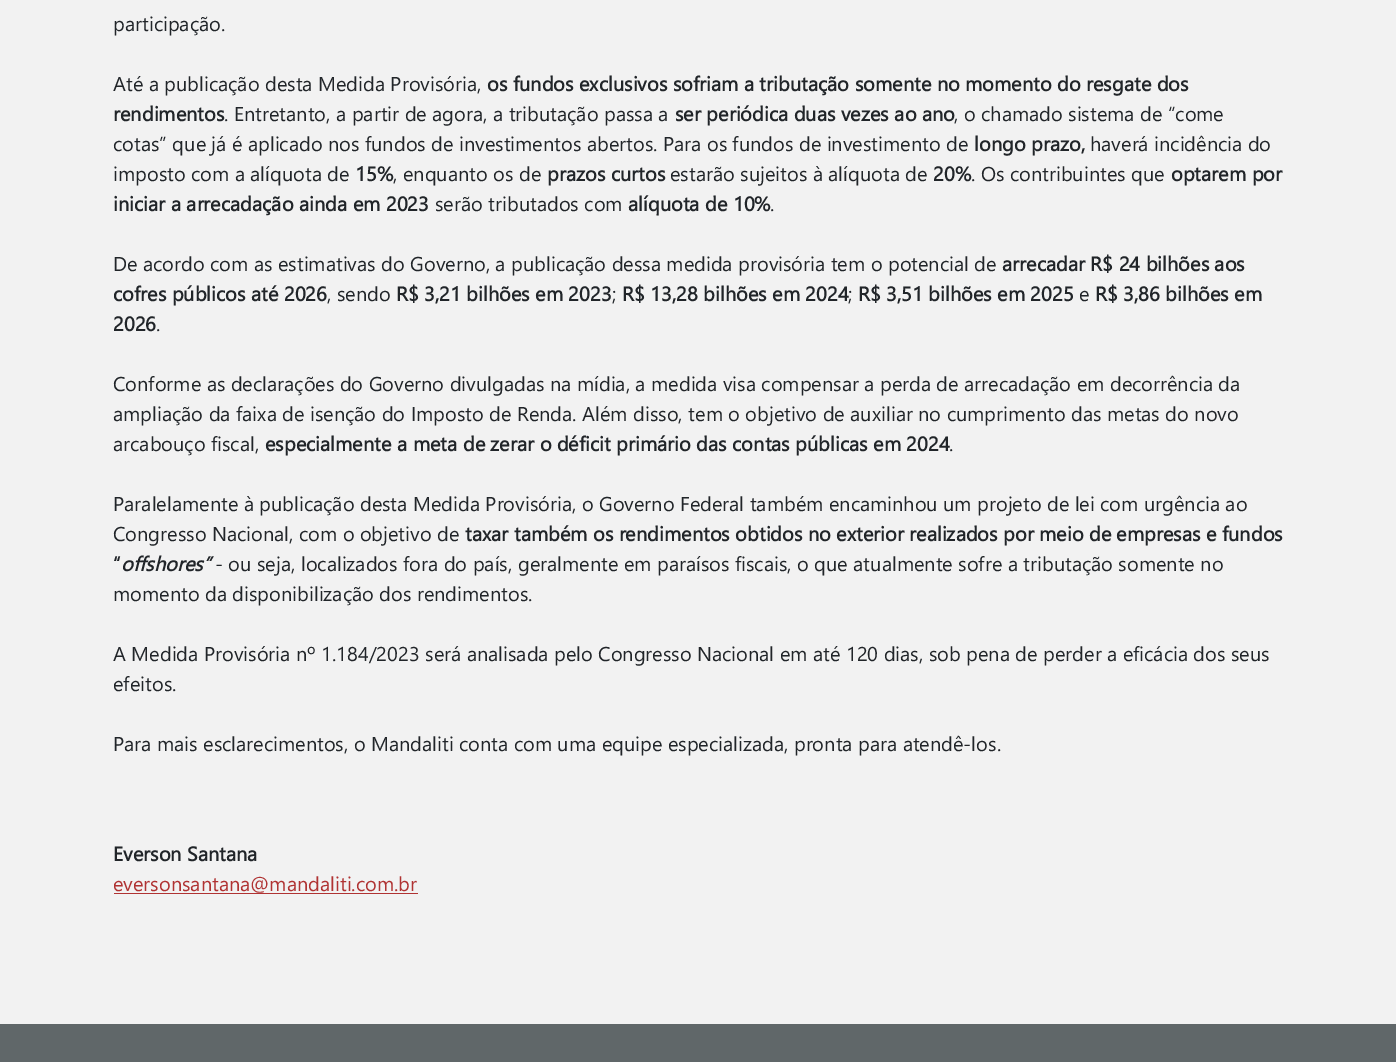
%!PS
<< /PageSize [1396 1062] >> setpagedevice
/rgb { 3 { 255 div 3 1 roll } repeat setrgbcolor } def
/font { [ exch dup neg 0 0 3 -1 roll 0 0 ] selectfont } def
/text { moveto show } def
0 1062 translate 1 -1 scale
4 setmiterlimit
242 242 242 rgb
0 0 1396 1062 rectfill
176 51 51 rgb
114 893 304 1 rectfill
96 103 105 rgb
0 1024 1396 38 rectfill
/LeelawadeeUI-Regular 20 font
33 37 41 rgb
(participação.) 113 31 text
(Até a publicação desta Medida Provisória,) 113 91 text
/LeelawadeeUI-Bold 20 font
(os fundos exclusivos sofriam a tributação somente no momento do resgate dos) 487 91 text
(rendimentos) 113 121 text
/LeelawadeeUI-Regular 20 font
(. Entretanto, a partir de agora, a tributação passa a) 224 121 text
/LeelawadeeUI-Bold 20 font
(ser periódica duas vezes ao ano) 675 121 text
/LeelawadeeUI-Regular 20 font
(, o chamado sistema de “come) 954 121 text
(cotas” que já é aplicado nos fundos de investimentos abertos. Para os fundos de investimento de) 113 151 text
/LeelawadeeUI-Bold 20 font
(longo prazo,) 974 151 text
/LeelawadeeUI-Regular 20 font
(haverá incidência do) 1090 151 text
(imposto com a alíquota de) 113 181 text
/LeelawadeeUI-Bold 20 font
(15%) 355 181 text
/LeelawadeeUI-Regular 20 font
(, enquanto os de) 393 181 text
/LeelawadeeUI-Bold 20 font
(prazos curtos) 547 181 text
/LeelawadeeUI-Regular 20 font
(estarão sujeitos à alíquota de) 670 181 text
/LeelawadeeUI-Bold 20 font
(20%) 933 181 text
/LeelawadeeUI-Regular 20 font
(. Os contribuintes que) 971 181 text
/LeelawadeeUI-Bold 20 font
(optarem por) 1171 181 text
(iniciar a arrecadação ainda em 2023) 113 211 text
/LeelawadeeUI-Regular 20 font
(serão tributados com) 435 211 text
/LeelawadeeUI-Bold 20 font
(alíquota de 10%) 628 211 text
/LeelawadeeUI-Regular 20 font
(.) 770 211 text
(De acordo com as estimativas do Governo, a publicação dessa medida provisória tem o potencial de) 113 271 text
/LeelawadeeUI-Bold 20 font
(arrecadar R$ 24 bilhões aos) 1002 271 text
(cofres públicos até 2026) 113 301 text
/LeelawadeeUI-Regular 20 font
(, sendo) 327 301 text
/LeelawadeeUI-Bold 20 font
(R$ 3,21 bilhões em 2023) 396 301 text
/LeelawadeeUI-Regular 20 font
(;) 612 301 text
/LeelawadeeUI-Bold 20 font
(R$ 13,28 bilhões em 2024) 622 301 text
/LeelawadeeUI-Regular 20 font
(;) 848 301 text
/LeelawadeeUI-Bold 20 font
(R$ 3,51 bilhões em 2025) 858 301 text
/LeelawadeeUI-Regular 20 font
(e) 1079 301 text
/LeelawadeeUI-Bold 20 font
(R$ 3,86 bilhões em) 1095 301 text
(2026) 113 331 text
/LeelawadeeUI-Regular 20 font
(.) 156 331 text
(Conforme as declarações do Governo divulgadas na mídia, a medida visa compensar a perda de arrecadação em decorrência da) 113 391 text
(ampliação da faixa de isenção do Imposto de Renda. Além disso, tem o objetivo de auxiliar no cumprimento das metas do novo) 113 421 text
(arcabouço fiscal,) 113 451 text
/LeelawadeeUI-Bold 20 font
(especialmente a meta de zerar o déficit primário das contas públicas em 2024) 265 451 text
/LeelawadeeUI-Regular 20 font
(.) 949 451 text
(Paralelamente à publicação desta Medida Provisória, o Governo Federal também encaminhou um projeto de lei com urgência ao) 113 511 text
(Congresso Nacional, com o objetivo de) 113 541 text
/LeelawadeeUI-Bold 20 font
(taxar também os rendimentos obtidos no exterior realizados por meio de empresas e fundos) 465 541 text
(“) 113 571 text
/LeelawadeeUI-BoldItalic 20 font
(offshores”) 121 571 text
/LeelawadeeUI-Regular 20 font
(- ou seja, localizados fora do país, geralmente em paraísos fiscais, o que atualmente sofre a tributação somente no) 215 571 text
(momento da disponibilização dos rendimentos.) 113 601 text
(A Medida Provisória nº 1.184/2023 será analisada pelo Congresso Nacional em até 120 dias, sob pena de perder a eficácia dos seus) 113 661 text
(efeitos.) 113 691 text
(Para mais esclarecimentos, o Mandaliti conta com uma equipe especializada, pronta para atendê-los.) 113 751 text
/LeelawadeeUI-Bold 20 font
(Everson Santana) 113 861 text
/LeelawadeeUI-Regular 20 font
176 51 51 rgb
(eversonsantana@mandaliti.com.br) 113 891 text
showpage
